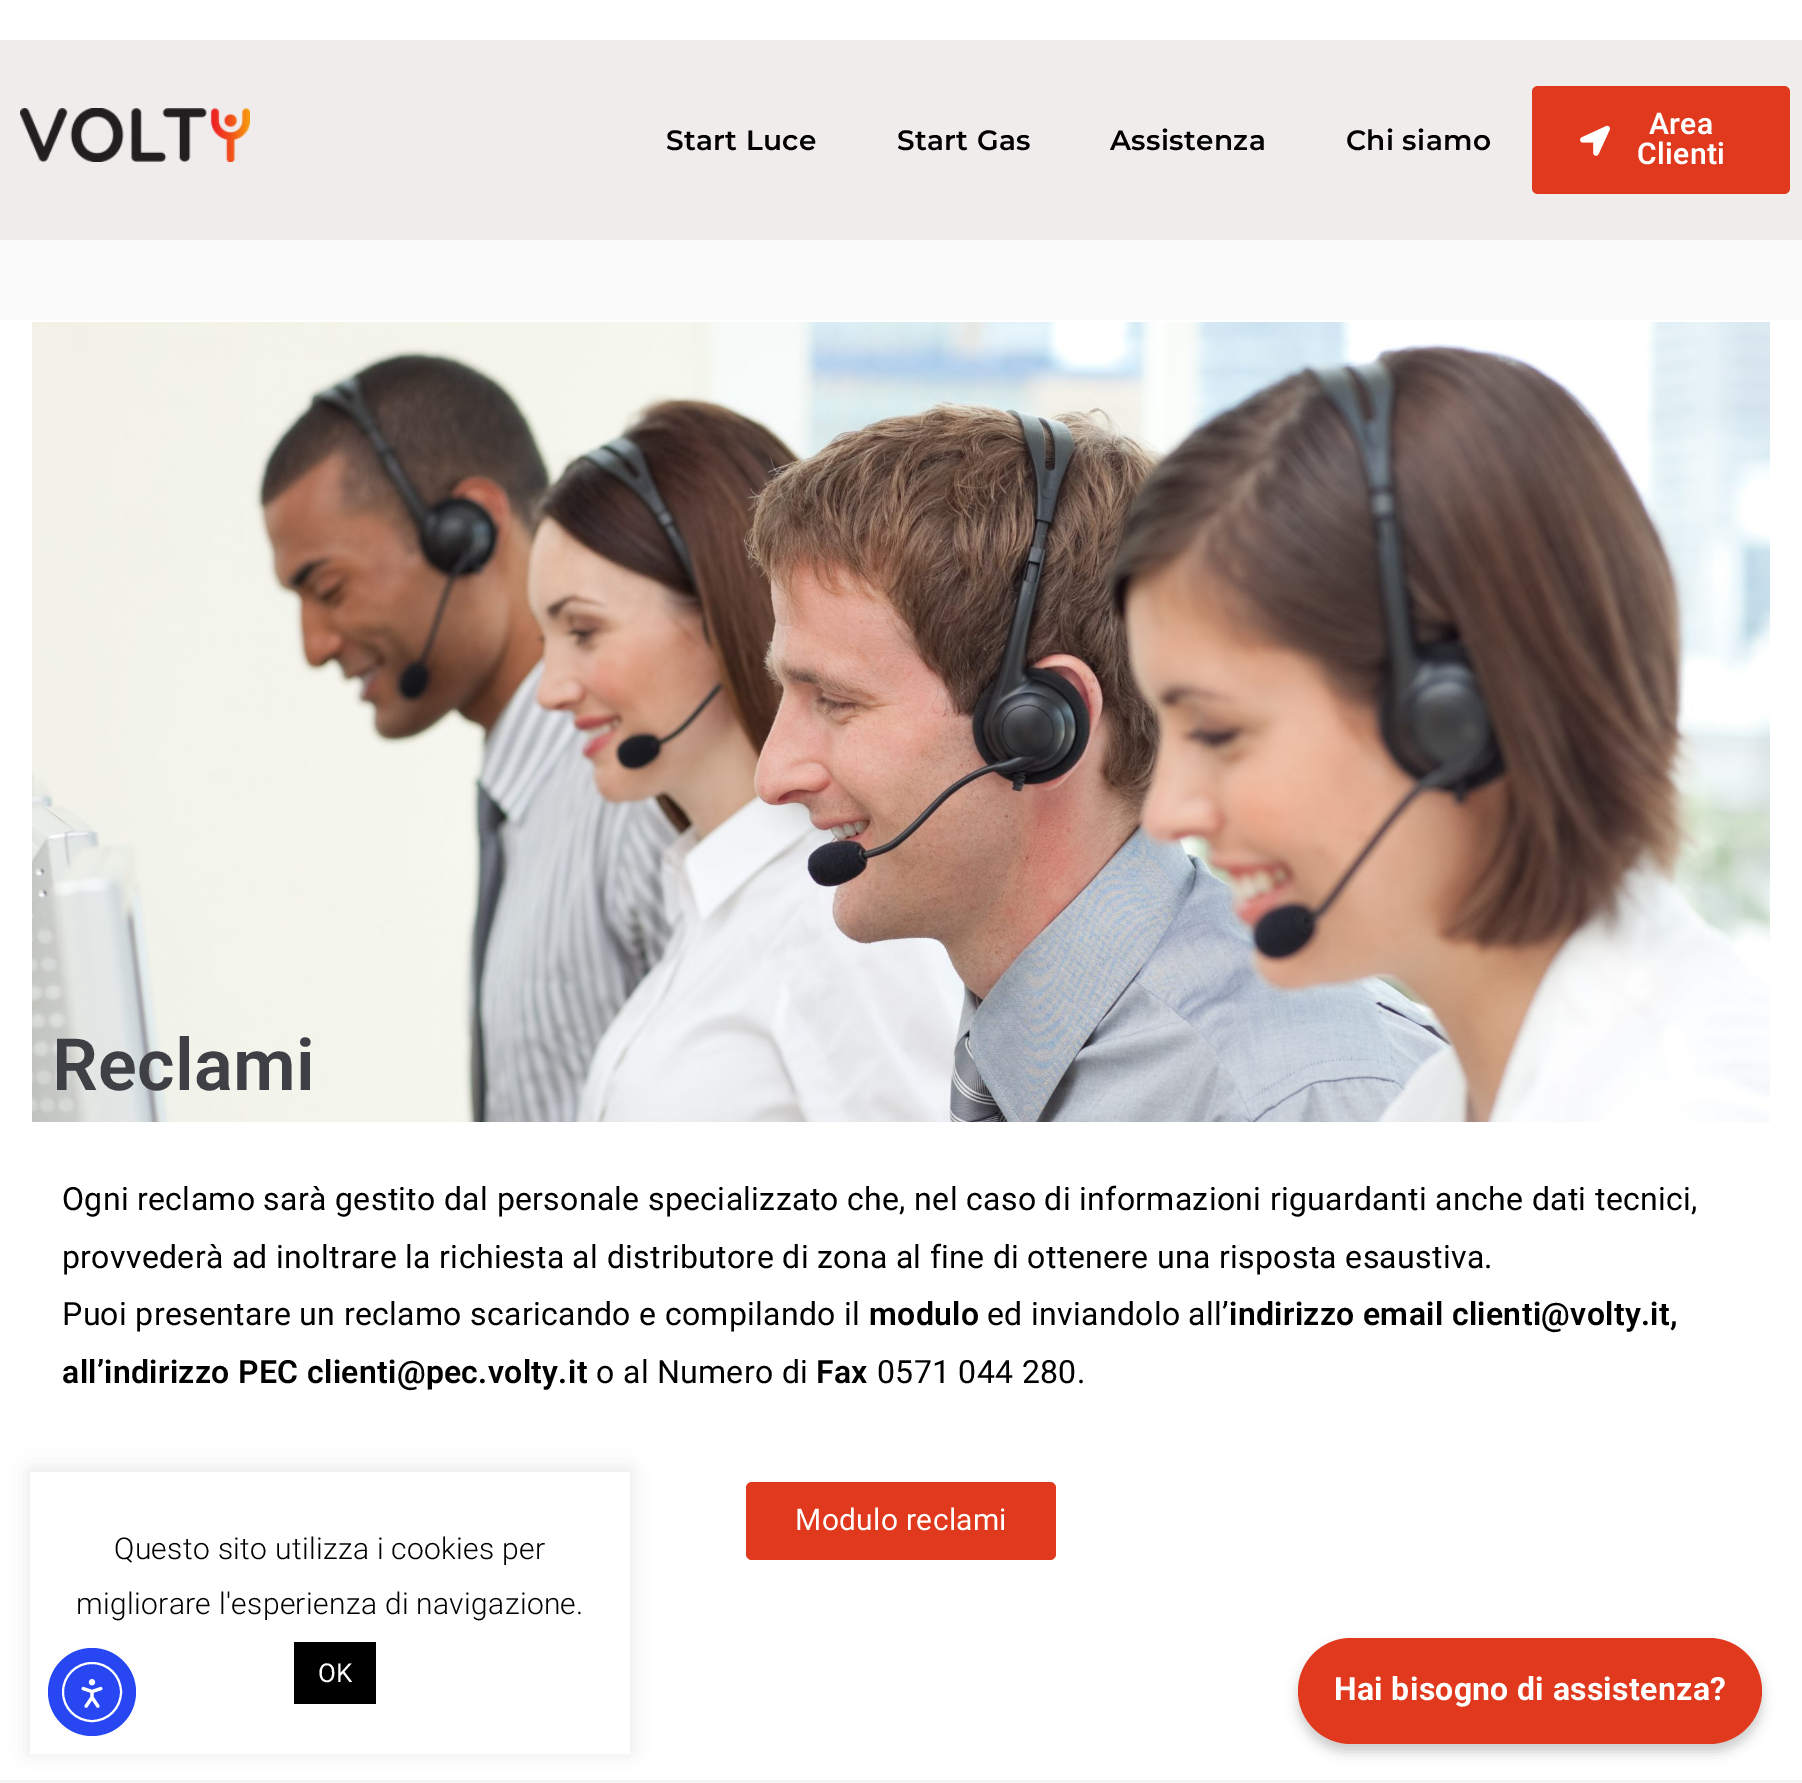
%!PS
<< /PageSize [1802 1783] /PageUsesTransparency true >> setpagedevice
/rgb { 3 { 255 div 3 1 roll } repeat setrgbcolor } def
/font { [ exch dup neg 0 0 3 -1 roll 0 0 ] selectfont } def
/alpha { dup .setfillconstantalpha .setstrokeconstantalpha } def
/circle { newpath 0 360 arc closepath } def
/roundrect { 5 dict begin { /r /h /w /y /x } { exch def } forall
  x r add y moveto x w add y 2 copy h add r arct x w add y h add x 1 index r arct
  x y h add x y r arct x y 2 copy exch w add exch r arct closepath end } def
/shadow { 12 dict begin { /a /b /q /h /w /y /x } { exch def } forall gsave /was 0 def
  9 -2 -9 { dup b mul 4 div /e exch def 1 sub .425 mul 2.718 exch exp 1 add a .99 .min exch div /now exch def
    1 1 now sub 1 was sub div sub alpha /was now def
    w h .min e 2 mul add 0 gt { x e sub y e sub w e 2 mul add h e 2 mul add
      q e add b .6 mul add w h .min 2 div e add .min 0 .max roundrect fill } if } for grestore end } def
/picture { 5 dict begin { /h /w /y /x /name } { exch def } forall
  gsave x y translate w h scale
  w h 8 [w 0 0 h 0 0] name (r) file false 3 colorimage grestore end } def
0 .pushpdf14devicefilter
0 1783 translate 1 -1 scale
4 setmiterlimit
250 250 250 rgb
0 0 1802 1783 rectfill
255 255 255 rgb
0 320 1802 1460 rectfill
0 0 1802 40 rectfill
240 236 236 rgb
0 40 1802 200 rectfill
(img_01.rgb) 20 108 230 54 picture
224 57 29 rgb
1532 86 258 108 6 roundrect fill
(img_02.rgb) 1580 125 30 31 picture
(img_03.rgb) 32 322 1738 800 picture
746 1482 310 78 6 roundrect fill
244 244 244 rgb
0 1780 1802 3 rectfill
gsave
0 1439 moveto 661 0 rlineto 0 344 rlineto -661 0 rlineto closepath 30 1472 moveto 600 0 rlineto 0 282 rlineto -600 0 rlineto closepath eoclip newpath
172 171 171 rgb
30 1470 600 282 0 10 0.3 shadow
grestore
0 0 0 rgb
294 1642 82 62 rectfill
40 71 243 rgb
92 1692 44 circle fill
255 255 255 rgb
2 setlinewidth
92 1692 29 circle stroke
(img_04.rgb) 81 1679 22 29 picture
0 0 0 rgb
1298 1646 464 106 53 6 0.2 shadow
224 57 29 rgb
1298 1638 464 106 53 roundrect fill
/Montserrat-SemiBold 28 font
0 0 0 rgb
666 150 moveto 0.32 0 (Start Luce) ashow
897 150 moveto 0.32 0 (Start Gas) ashow
1110 150 moveto 0.32 0 (Assistenza) ashow
1346 150 moveto 0.32 0 (Chi siamo) ashow
/Roboto-SemiBold 30 font
255 255 255 rgb
1649 134 moveto 0.32 0 (Area) ashow
1637 164 moveto 0.32 0 (Clienti) ashow
/Roboto-SemiBold 72 font
63 63 70 rgb
52 1090 moveto 0.32 0 (Reclami) ashow
/Roboto-Regular 32 font
0 0 0 rgb
62 1210 moveto 0.32 0 (Ogni reclamo sarà gestito dal personale specializzato che, nel caso di informazioni riguardanti anche dati tecnici,) ashow
62 1268 moveto 0.32 0 (provvederà ad inoltrare la richiesta al distributore di zona al fine di ottenere una risposta esaustiva.) ashow
62 1325 moveto 0.32 0 (Puoi presentare un reclamo scaricando e compilando il) ashow
/Roboto-SemiBold 32 font
869 1325 moveto 0.32 0 (modulo) ashow
/Roboto-Regular 32 font
987 1325 moveto 0.32 0 (ed inviandolo all’) ashow
/Roboto-SemiBold 32 font
1229 1325 moveto 0.32 0 (indirizzo email clienti@volty.it,) ashow
62 1383 moveto 0.32 0 (all’indirizzo PEC clienti@pec.volty.it) ashow
/Roboto-Regular 32 font
596 1383 moveto 0.32 0 (o al Numero di) ashow
/Roboto-SemiBold 32 font
816 1383 moveto 0.32 0 (Fax) ashow
/Roboto-Regular 32 font
877 1383 moveto 0.32 0 (0571 044 280.) ashow
/Roboto-Regular 30 font
255 255 255 rgb
795 1530 moveto 0.32 0 (Modulo reclami) ashow
/Roboto-Light 30 font
0 0 0 rgb
114 1559 moveto 0.32 0 (Questo sito utilizza i cookies per) ashow
76 1614 moveto 0.32 0 (migliorare l'esperienza di navigazione.) ashow
/Roboto-Regular 26 font
255 255 255 rgb
318 1682 moveto 0.32 0 (OK) ashow
/Roboto-Bold 32 font
1334 1700 moveto 0.32 0 (Hai bisogno di assistenza?) ashow
.poppdf14devicefilter showpage
